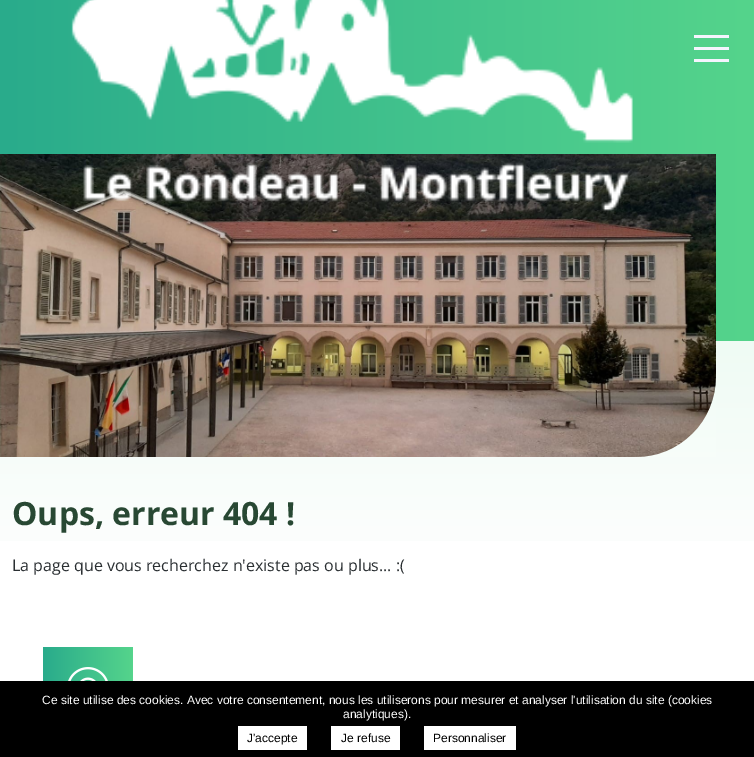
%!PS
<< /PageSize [754 757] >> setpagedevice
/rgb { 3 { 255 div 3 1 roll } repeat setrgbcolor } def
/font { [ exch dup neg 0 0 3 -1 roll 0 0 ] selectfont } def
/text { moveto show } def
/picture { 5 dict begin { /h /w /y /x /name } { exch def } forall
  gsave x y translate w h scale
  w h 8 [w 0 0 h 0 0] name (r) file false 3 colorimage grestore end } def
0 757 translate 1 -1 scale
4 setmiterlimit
255 255 255 rgb
0 0 754 757 rectfill
gsave 0 0 moveto 754 0 rlineto 0 341 rlineto -754 0 rlineto closepath clip newpath
<< /ShadingType 2 /ColorSpace /DeviceRGB /Coords [0 171 754 170] /Extend [true true] /Function << /FunctionType 2 /Domain [0 1] /C0 [0.161 0.671 0.545] /C1 [0.333 0.831 0.549] /N 1 >> >> shfill grestore
gsave 0 341 moveto 754 0 rlineto 0 200 rlineto -754 0 rlineto closepath clip newpath
<< /ShadingType 2 /ColorSpace /DeviceRGB /Coords [377 578 377 341] /Extend [true true] /Function << /FunctionType 2 /Domain [0 1] /C0 [1 1 1] /C1 [0.937 0.984 0.957] /N 1 >> >> shfill grestore
(img_02.rgb) 0 154 716 303 picture
(img_01.rgb) 71 0 562 211 picture
245 244 254 rgb
694 47 35 3 rectfill
694 35 35 3 rectfill
694 59 35 3 rectfill
gsave 43 647 moveto 90 0 rlineto 0 34 rlineto -90 0 rlineto closepath clip newpath
<< /ShadingType 2 /ColorSpace /DeviceRGB /Coords [43 692 133 692] /Extend [true true] /Function << /FunctionType 2 /Domain [0 1] /C0 [0.161 0.671 0.545] /C1 [0.333 0.831 0.549] /N 1 >> >> shfill grestore
(img_03.rgb) 68 667 40 14 picture
0 0 0 rgb
0 681 754 76 rectfill
255 255 255 rgb
238 726 69 24 rectfill
331 726 69 24 rectfill
424 726 92 24 rectfill
/OpenSans-Bold 32 font
40 72 51 rgb
(Oups, erreur 404 !) 12 525 text
/OpenSans-Regular 16 font
42 47 50 rgb
(La page que vous recherchez n'existe pas ou plus... :\() 12 571 text
/LiberationSans-Regular 12 font
255 255 255 rgb
(Ce site utilise des cookies. Avec votre consentement, nous les utiliserons pour mesurer et analyser l'utilisation du site \(cookies) 42 704 text
(analytiques\).) 343 718 text
0 0 0 rgb
(J'accepte) 247 742 text
(Je refuse) 341 742 text
(Personnaliser) 433 742 text
showpage
